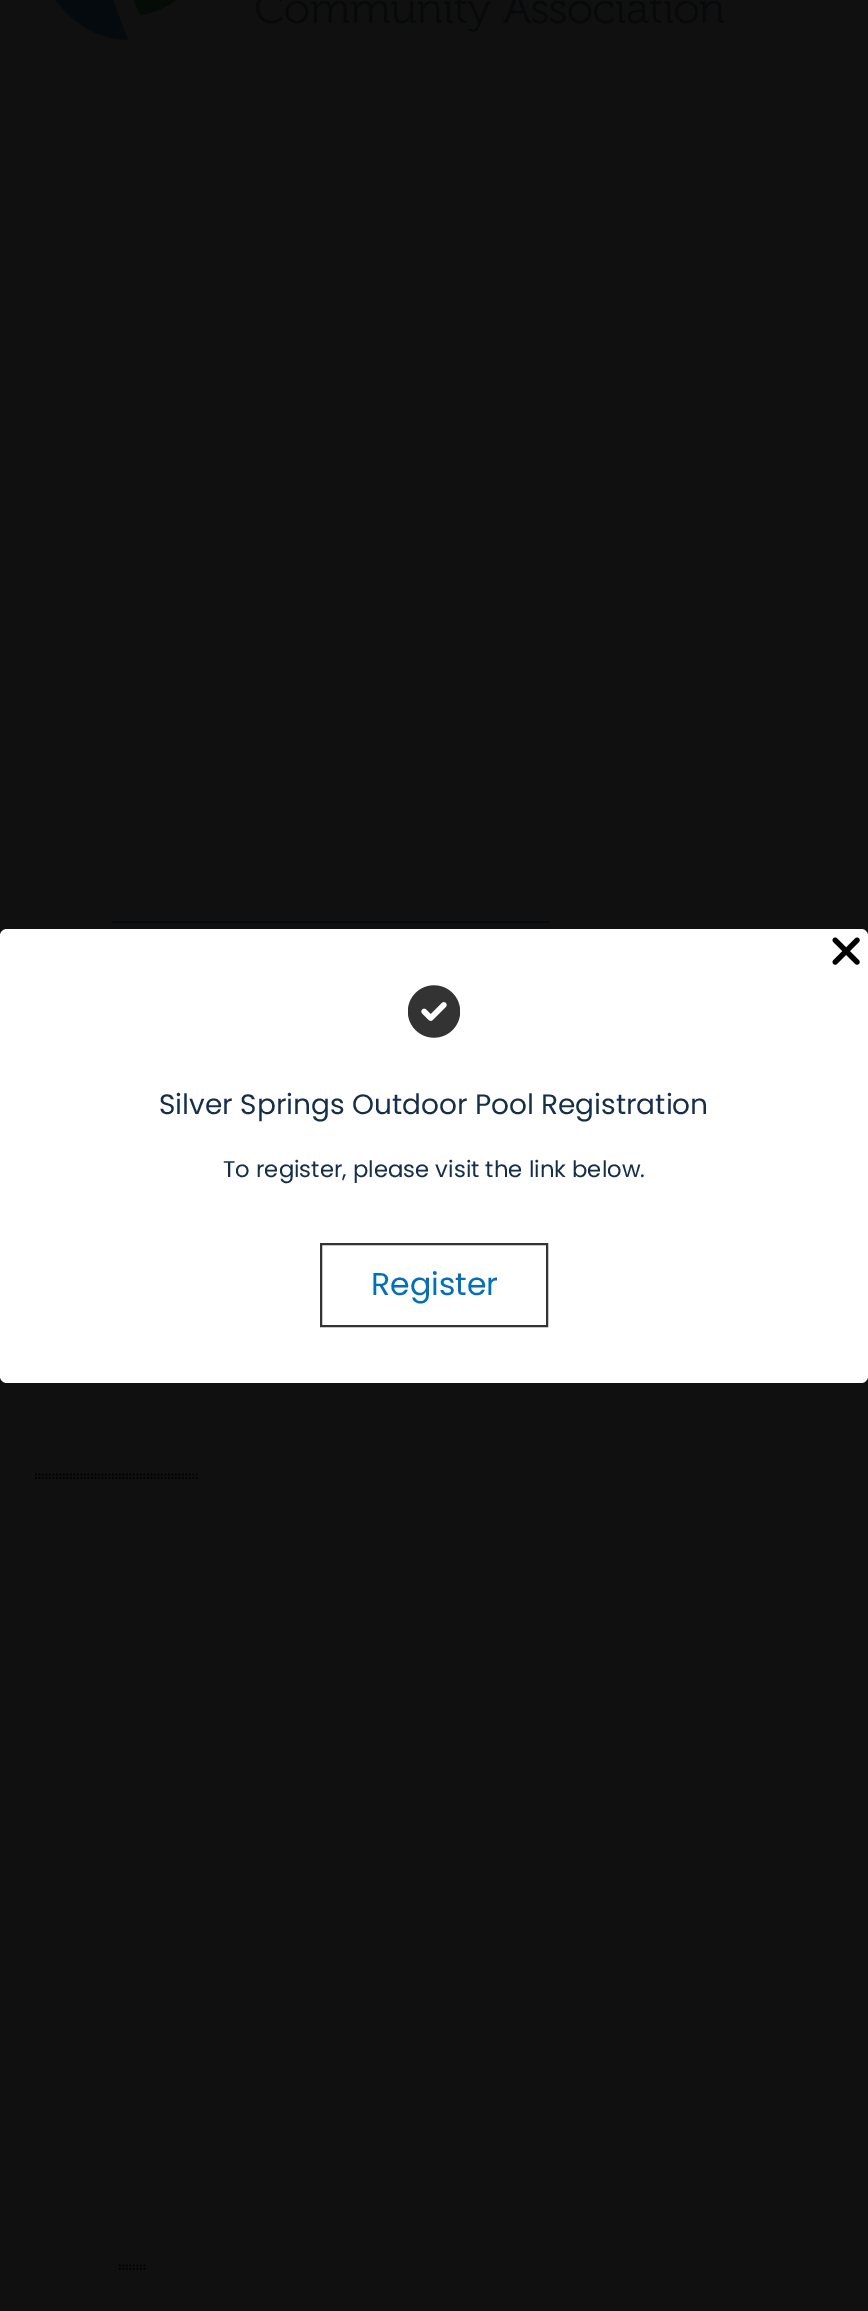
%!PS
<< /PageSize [868 2311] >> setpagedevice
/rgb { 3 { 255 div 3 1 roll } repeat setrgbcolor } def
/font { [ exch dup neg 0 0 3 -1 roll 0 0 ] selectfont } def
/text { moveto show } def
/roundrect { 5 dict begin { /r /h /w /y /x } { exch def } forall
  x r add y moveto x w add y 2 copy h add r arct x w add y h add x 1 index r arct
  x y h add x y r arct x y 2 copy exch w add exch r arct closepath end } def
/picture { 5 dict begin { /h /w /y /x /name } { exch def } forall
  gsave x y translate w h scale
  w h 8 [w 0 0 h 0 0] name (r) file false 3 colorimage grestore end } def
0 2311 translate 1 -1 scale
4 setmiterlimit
16 16 16 rgb
0 0 868 2311 rectfill
(img_01.rgb) 51 0 676 42 picture
5 11 14 rgb
112 921 438 2 rectfill
1 2 3 rgb
1.8 setlinewidth
[1.75 1.75] 0 setdash
35 1474.5 moveto 162.5 0 rlineto stroke
35 1478 moveto 163 0 rlineto stroke
119 2269 moveto 28 0 rlineto 119 2265.5 moveto 28 0 rlineto stroke
255 255 255 rgb
0 929 868 454 7 roundrect fill
(img_02.rgb) 832 937 28 28 picture
(img_03.rgb) 408 985 52 53 picture
51 51 51 rgb
2 setlinewidth
[] 0 setdash
321 1244 226 82 rectstroke
/Poppins-Regular 28 font
21 46 75 rgb
(Silver Springs Outdoor Pool Registration) 159 1114 text
/Poppins-Regular 22.75 font
(To register, please visit the link below.) 223 1177 text
/Poppins-Regular 31.5 font
1 112 185 rgb
(Register) 371 1295 text
showpage
